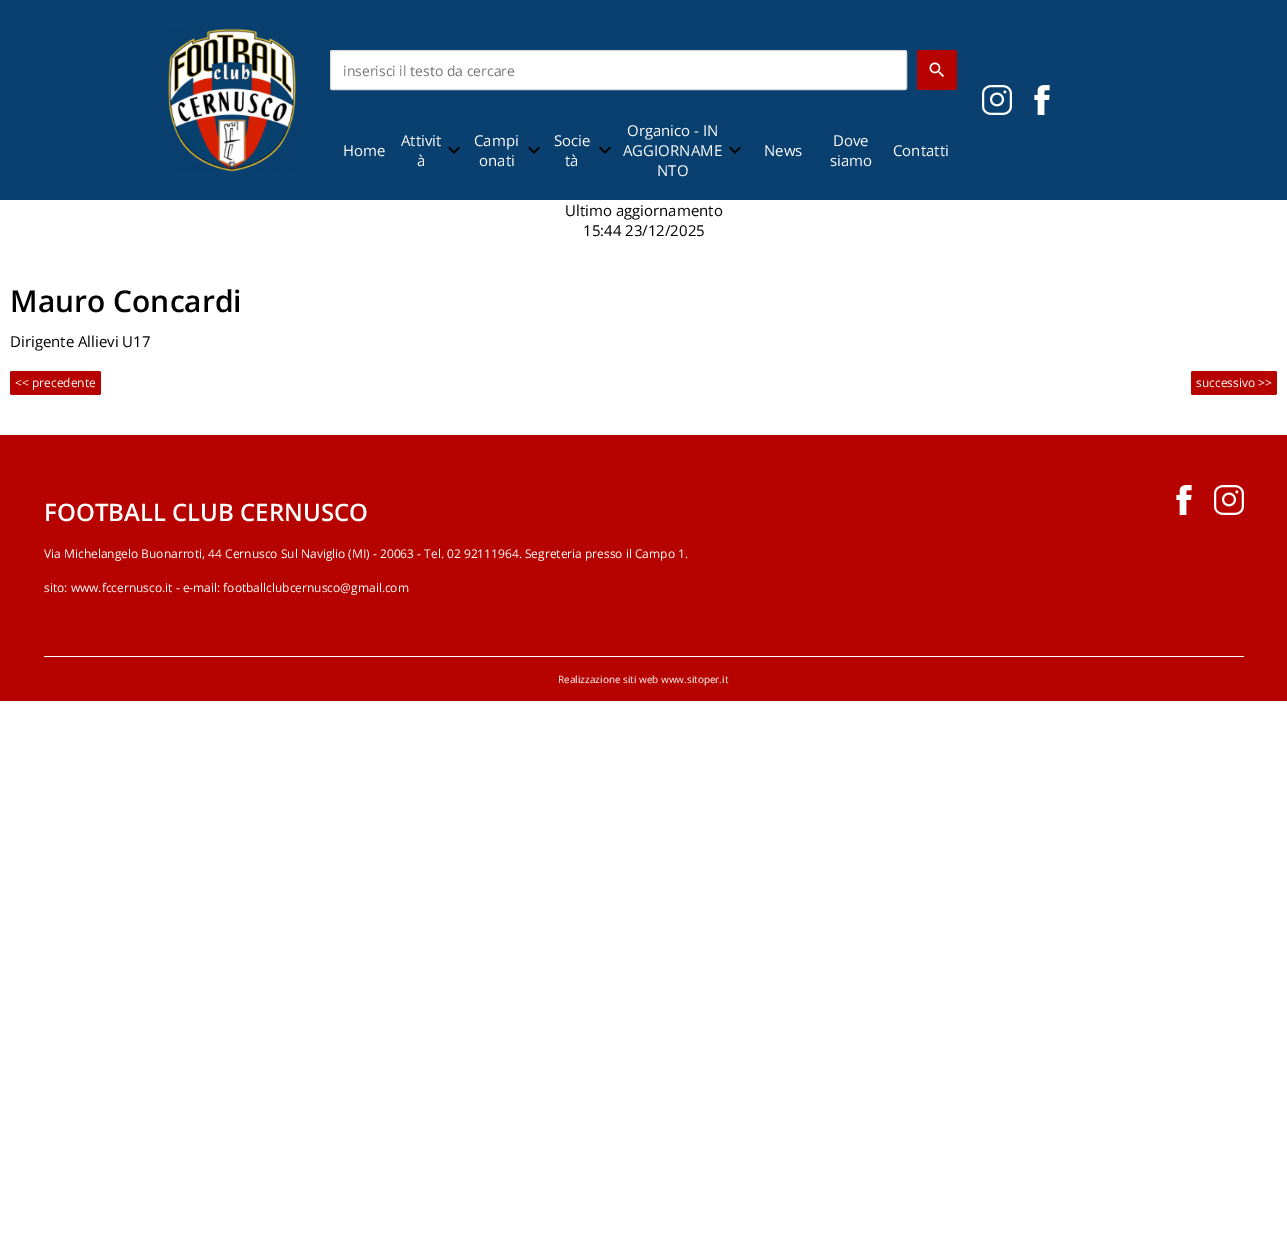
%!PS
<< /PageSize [1287 1248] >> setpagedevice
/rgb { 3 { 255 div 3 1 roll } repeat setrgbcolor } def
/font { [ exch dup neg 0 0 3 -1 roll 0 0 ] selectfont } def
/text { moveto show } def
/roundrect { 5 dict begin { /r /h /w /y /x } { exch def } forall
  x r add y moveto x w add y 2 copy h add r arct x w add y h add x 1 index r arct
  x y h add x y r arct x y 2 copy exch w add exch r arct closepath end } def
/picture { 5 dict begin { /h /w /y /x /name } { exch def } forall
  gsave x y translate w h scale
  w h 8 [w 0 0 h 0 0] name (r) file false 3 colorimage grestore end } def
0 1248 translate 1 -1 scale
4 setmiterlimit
255 255 255 rgb
0 0 1287 1248 rectfill
9 64 111 rgb
0 0 1287 200 rectfill
(img_01.rgb) 168 28 128 144 picture
255 255 255 rgb
330.5 50.5 576 39 1.5 roundrect gsave fill grestore
218 218 218 rgb
stroke
183 3 0 rgb
917 50 40 40 2 roundrect fill
(img_02.rgb) 929 62 15 15 picture
(img_03.rgb) 448 146 12 8 picture
(img_03.rgb) 528 146 12 8 picture
(img_03.rgb) 599 146 12 8 picture
(img_03.rgb) 729 146 12 8 picture
(img_04.rgb) 982 85 30 30 picture
(img_05.rgb) 1034 85 16 30 picture
10 371 91 24 2 roundrect fill
1191 371 86 24 2 roundrect fill
0 435 1287 266 rectfill
(img_06.rgb) 1176 485 16 30 picture
(img_07.rgb) 1214 485 30 30 picture
255 255 255 rgb
44 656 1200 1 rectfill
/OpenSans-Regular 14 font
117 117 117 rgb
(inserisci il testo da cercare) 343 76 text
/OpenSans-Regular 15 font
255 255 255 rgb
(Home) 343 156 text
(Attivit) 401 146 text
(à) 417 166 text
(Campi) 474 146 text
(onati) 479 166 text
(Socie) 554 146 text
(tà) 565 166 text
(Organico - IN) 627 136 text
(AGGIORNAME) 623 156 text
(NTO) 657 176 text
(News) 764 156 text
(Dove) 833 146 text
(siamo) 830 166 text
(Contatti) 893 156 text
0 0 0 rgb
(Ultimo aggiornamento) 565 216 text
(15:44 23/12/2025) 583 236 text
/OpenSans-SemiBold 30 font
(Mauro Concardi) 10 312 text
/OpenSans-Regular 15 font
(Dirigente Allievi U17) 10 347 text
/OpenSans-Regular 12 font
255 255 255 rgb
(<< precedente) 15 387 text
(successivo >>) 1196 387 text
/OpenSans-SemiBold 24 font
(FOOTBALL CLUB CERNUSCO) 44 521 text
/OpenSans-Regular 12 font
(Via Michelangelo Buonarroti, 44 Cernusco Sul Naviglio \(MI\) - 20063 - Tel. 02 92111964. Segreteria presso il Campo 1.) 44 558 text
(sito: www.fccernusco.it - e-mail: footballclubcernusco@gmail.com) 44 592 text
/OpenSans-Regular 10 font
(Realizzazione siti web www.sitoper.it) 558 683 text
showpage
